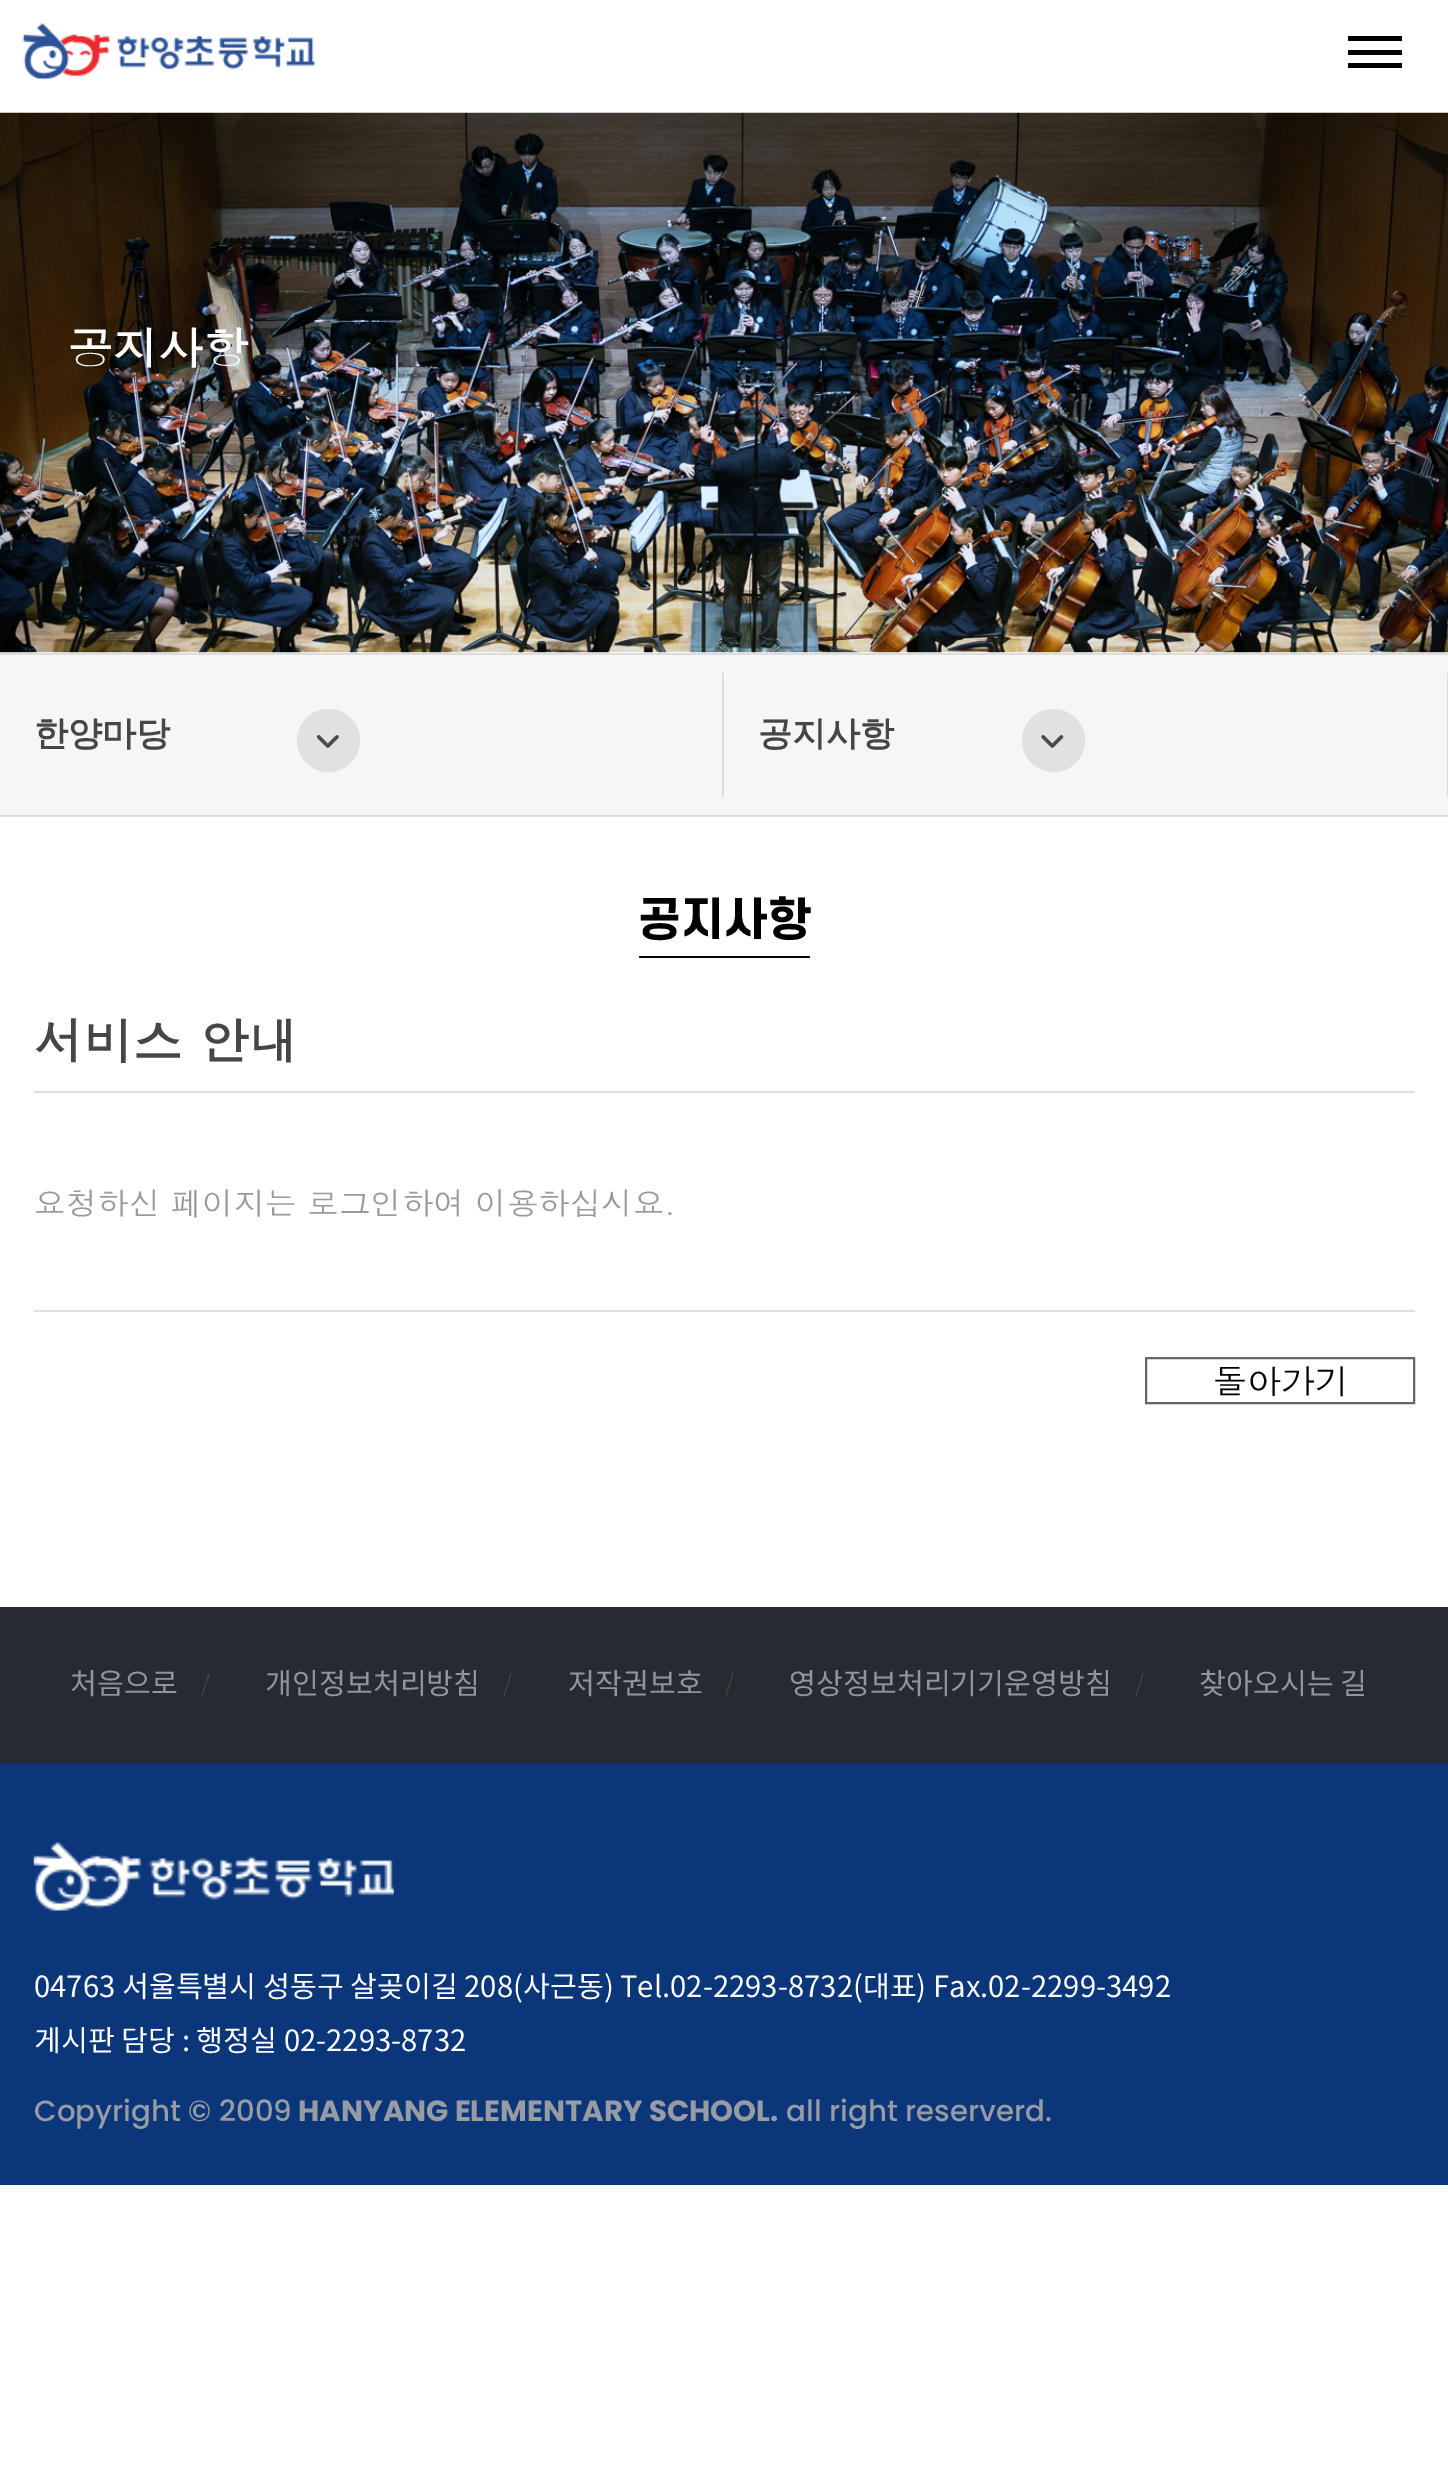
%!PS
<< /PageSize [1448 2485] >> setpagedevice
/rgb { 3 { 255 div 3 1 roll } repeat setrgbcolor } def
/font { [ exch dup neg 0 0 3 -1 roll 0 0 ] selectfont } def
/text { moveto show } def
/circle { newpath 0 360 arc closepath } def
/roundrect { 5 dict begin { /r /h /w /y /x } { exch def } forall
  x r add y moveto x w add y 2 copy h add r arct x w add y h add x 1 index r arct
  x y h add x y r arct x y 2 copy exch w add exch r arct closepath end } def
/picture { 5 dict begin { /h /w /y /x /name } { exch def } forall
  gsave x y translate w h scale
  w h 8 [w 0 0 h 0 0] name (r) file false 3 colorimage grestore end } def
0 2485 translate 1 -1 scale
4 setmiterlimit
255 255 255 rgb
0 0 1448 2485 rectfill
(img_01.rgb) 22 23 293 57 picture
0 0 0 rgb
1348 36 54 5 rectfill
1348 50 54 5 rectfill
1348 63 54 5 rectfill
(img_02.rgb) 0 112 1448 541 picture
246 246 246 rgb
0 655 1448 160 rectfill
221 221 221 rgb
0 653 1448 2 rectfill
0 815 1448 2 rectfill
722 673 2 124 rectfill
225 225 225 rgb
328.5 740.5 31.5 circle fill
(img_03.rgb) 316 735 23 13 picture
221 221 221 rgb
1447 673 1 124 rectfill
225 225 225 rgb
1053.5 740.5 31.5 circle fill
(img_04.rgb) 1041 735 23 13 picture
0 0 0 rgb
639 956 171 2 1 roundrect fill
223 223 223 rgb
34 1091 1381 2 rectfill
34 1310 1381 2 rectfill
102 102 102 rgb
2 setlinewidth
1146 1358 268 45 rectstroke
11 54 121 rgb
0 1764 1448 421 rectfill
39 42 49 rgb
0 1607 1448 155 rectfill
42 45 53 rgb
0 1762 1448 2 rectfill
(img_05.rgb) 33 1842 361 69 picture
/Dotum-Bold 45 font
255 255 255 rgb
(공지사항) 68 365 text
/WenQuanYiZenHei-Bold 34 font
70 70 70 rgb
(한양마당) 34 745 text
(공지사항) 758 745 text
/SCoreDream-ExtraBold 45 font
0 0 0 rgb
(공지사항) 638 936 text
/Dotum-Bold 49.5 font
70 70 70 rgb
(서비스 안내) 34 1060 text
/Dotum-Regular 31.5 font
153 153 153 rgb
(요청하신 페이지는 로그인하여 이용하십시요.) 34 1215 text
/Dotum-Regular 34 font
0 0 0 rgb
(돌아가기) 1213 1394 text
/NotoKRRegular-Regular 29.25 font
146 149 155 rgb
(처음으로) 70 1694 text
/Dotum-Regular 27 font
70 70 70 rgb
(/) 200 1694 text
/NotoKRRegular-Regular 29.25 font
146 149 155 rgb
(개인정보처리방침) 265 1694 text
/Dotum-Regular 27 font
70 70 70 rgb
(/) 502 1694 text
/NotoKRRegular-Regular 29.25 font
146 149 155 rgb
(저작권보호) 568 1694 text
/Dotum-Regular 27 font
70 70 70 rgb
(/) 724 1694 text
/NotoKRRegular-Regular 29.25 font
146 149 155 rgb
(영상정보처리기기운영방침) 789 1694 text
/Dotum-Regular 27 font
70 70 70 rgb
(/) 1134 1694 text
/NotoKRRegular-Regular 29.25 font
146 149 155 rgb
(찾아오시는 길) 1199 1694 text
255 255 255 rgb
(04763 서울특별시 성동구 살곶이길 208\(사근동\) Tel.02-2293-8732\(대표\) Fax.02-2299-3492) 34 1997 text
(게시판 담당 : 행정실 02-2293-8732) 34 2051 text
/Poppins-Medium 29.25 font
151 155 163 rgb
(Copyright © 2009) 34 2121 text
/Poppins-Bold 29.25 font
(HANYANG ELEMENTARY SCHOOL.) 298 2121 text
/Poppins-Medium 29.25 font
(all right reserverd.) 786 2121 text
showpage
